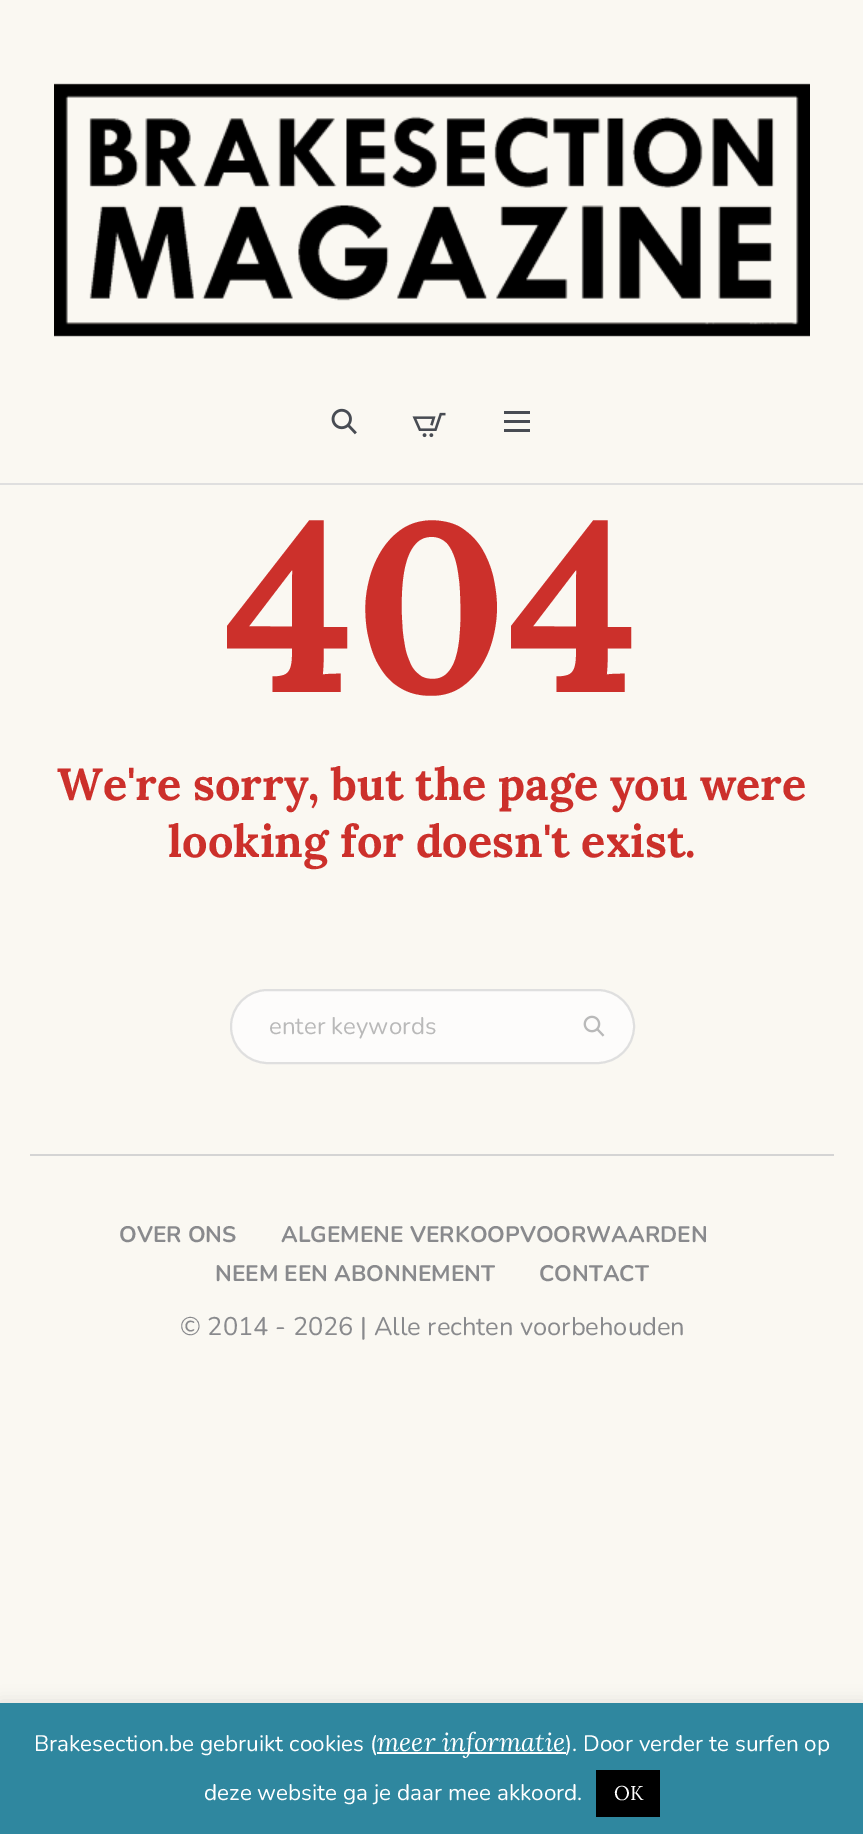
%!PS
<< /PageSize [863 1834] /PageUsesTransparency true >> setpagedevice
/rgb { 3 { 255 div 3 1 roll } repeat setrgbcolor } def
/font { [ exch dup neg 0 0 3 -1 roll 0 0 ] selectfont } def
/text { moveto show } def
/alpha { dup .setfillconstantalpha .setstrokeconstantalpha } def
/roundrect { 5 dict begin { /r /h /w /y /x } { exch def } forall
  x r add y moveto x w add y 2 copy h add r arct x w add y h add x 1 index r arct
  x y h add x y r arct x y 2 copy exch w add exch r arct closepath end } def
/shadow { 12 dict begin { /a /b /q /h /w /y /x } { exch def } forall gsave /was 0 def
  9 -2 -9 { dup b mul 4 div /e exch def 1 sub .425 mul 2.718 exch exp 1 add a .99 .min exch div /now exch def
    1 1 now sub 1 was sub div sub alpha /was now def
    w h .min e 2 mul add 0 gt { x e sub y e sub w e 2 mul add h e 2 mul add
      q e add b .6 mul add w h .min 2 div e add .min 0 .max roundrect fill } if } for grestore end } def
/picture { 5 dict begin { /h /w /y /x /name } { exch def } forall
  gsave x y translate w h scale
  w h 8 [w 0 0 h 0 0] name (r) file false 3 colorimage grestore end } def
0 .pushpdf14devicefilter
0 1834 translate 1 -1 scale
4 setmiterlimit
250 248 242 rgb
0 0 863 1834 rectfill
(img_01.rgb) 54 83 756 254 picture
(img_02.rgb) 331 408 26 27 picture
(img_03.rgb) 412 412 34 26 picture
72 76 83 rgb
504 420 26 3 rectfill
504 411 26 3 rectfill
504 429 26 3 rectfill
223 223 223 rgb
0 483 863 2 rectfill
253 252 251 rgb
231 990 403 73 36.5 roundrect gsave fill grestore
223 223 223 rgb
2 setlinewidth
stroke
(img_04.rgb) 583 1015 22 22 picture
212 212 212 rgb
30 1154 804 2 rectfill
172 171 171 rgb
0 1701 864 132 0 7.5 0.3 shadow
47 135 159 rgb
0 1703 863 131 rectfill
255 255 255 rgb
377 1752 189 2 rectfill
0 0 0 rgb
596 1770 64 47 rectfill
/Lora-Bold 240 font
204 48 43 rgb
(404) 224 692 text
/Lora-Bold 45 font
(We're sorry, but the page you were) 57 800 text
(looking for doesn't exist.) 168 857 text
/Nunito-Regular 24 font
185 185 185 rgb
(enter keywords) 269 1034 text
/Nunito-Bold 22.5 font
137 138 141 rgb
(OVER ONS) 119 1242 text
(ALGEMENE VERKOOPVOORWAARDEN) 281 1242 text
(NEEM EEN ABONNEMENT) 215 1281 text
(CONTACT) 539 1281 text
/Nunito-Regular 25.5 font
(© 2014 - 2026 | Alle rechten voorbehouden) 180 1335 text
/Nunito-Regular 22.5 font
255 255 255 rgb
(Brakesection.be gebruikt cookies \() 34 1751 text
/Lora-Italic 25.5 font
(meer informatie) 377 1751 text
/Nunito-Regular 22.5 font
(\). Door verder te surfen op) 565 1751 text
(deze website ga je daar mee akkoord.) 204 1800 text
/Lora-Regular 20 font
(OK) 614 1800 text
.poppdf14devicefilter showpage
